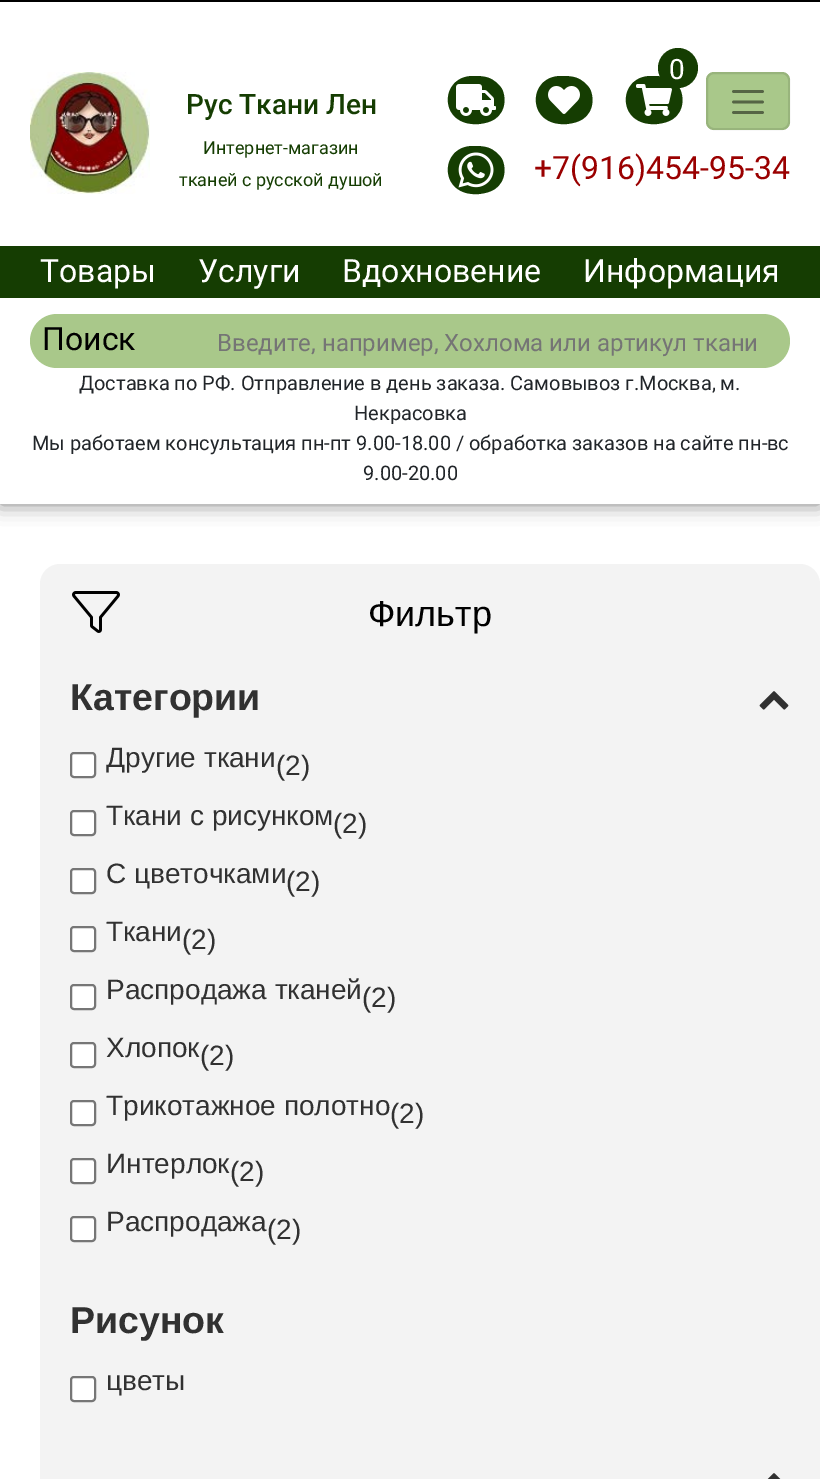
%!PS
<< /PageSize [820 1479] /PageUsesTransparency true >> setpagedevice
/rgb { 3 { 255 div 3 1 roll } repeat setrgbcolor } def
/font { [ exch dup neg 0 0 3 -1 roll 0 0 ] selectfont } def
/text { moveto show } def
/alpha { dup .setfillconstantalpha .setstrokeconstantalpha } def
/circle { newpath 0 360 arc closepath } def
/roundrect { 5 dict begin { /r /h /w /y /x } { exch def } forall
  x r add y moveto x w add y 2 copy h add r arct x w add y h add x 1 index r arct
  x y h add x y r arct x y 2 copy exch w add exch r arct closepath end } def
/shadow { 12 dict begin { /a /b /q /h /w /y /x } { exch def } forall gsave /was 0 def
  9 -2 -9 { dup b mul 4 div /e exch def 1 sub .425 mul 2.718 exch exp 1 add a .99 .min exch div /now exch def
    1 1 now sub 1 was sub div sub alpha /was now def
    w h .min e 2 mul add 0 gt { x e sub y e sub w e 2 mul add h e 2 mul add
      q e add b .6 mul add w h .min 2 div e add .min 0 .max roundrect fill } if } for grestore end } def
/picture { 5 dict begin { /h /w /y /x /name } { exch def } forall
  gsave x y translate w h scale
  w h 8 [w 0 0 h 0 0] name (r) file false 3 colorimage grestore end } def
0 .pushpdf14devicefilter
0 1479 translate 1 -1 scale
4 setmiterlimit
255 255 255 rgb
0 0 820 1479 rectfill
0 0 0 rgb
0 0 820 2 rectfill
gsave
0 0 moveto 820 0 rlineto 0 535 rlineto -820 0 rlineto closepath 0 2 moveto 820 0 rlineto 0 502 rlineto -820 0 rlineto closepath eoclip newpath
0 2 820 502 0 10 0.5 shadow
grestore
(img_01.rgb) 30 72 120 122 picture
21 61 2 rgb
651 76 moveto 5 0 11 0 16 2 rcurveto 5 2 10 6 13 11 rcurveto 4 8 3 19 -2 25 rcurveto -5 7 -13 9 -21 10 rcurveto -41 3 -40 -48 -6 -48 rcurveto closepath fill
(img_02.rgb) 636 84 36 32 picture
678 68 20 circle fill
473 76 moveto 5 0 11 0 16 2 rcurveto 5 2 10 6 13 11 rcurveto 4 8 3 19 -2 25 rcurveto -5 7 -13 9 -21 10 rcurveto -41 3 -40 -48 -6 -48 rcurveto closepath fill
(img_03.rgb) 456 84 40 32 picture
561 76 moveto 5 0 11 0 16 2 rcurveto 5 2 10 6 13 11 rcurveto 4 8 3 19 -2 25 rcurveto -5 7 -13 9 -21 10 rcurveto -41 3 -40 -48 -6 -48 rcurveto closepath fill
(img_04.rgb) 548 86 32 28 picture
169 200 138 rgb
706 72 84 58 8 roundrect fill
0.1 alpha
0 0 0 rgb
2 setlinewidth
707 73 82 56 7 roundrect stroke
1 alpha
85 100 69 rgb
2.7 setlinewidth
1 setlinecap
733.5 91.5 moveto 29 0 rlineto 733.5 102 moveto 29 0 rlineto 733.5 112.5 moveto 29 0 rlineto stroke
21 61 2 rgb
473 146 moveto 5 0 11 0 16 2 rcurveto 5 2 10 6 13 11 rcurveto 4 8 3 19 -2 25 rcurveto -5 7 -13 9 -21 10 rcurveto -41 3 -40 -48 -6 -48 rcurveto closepath fill
(img_05.rgb) 458 152 36 36 picture
0 246 820 52 rectfill
169 200 138 rgb
30 314 760 54 27 roundrect fill
243 243 243 rgb
40 564 780 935 20 roundrect fill
(img_06.rgb) 72 591 48 42 picture
(img_07.rgb) 759 691 30 19 picture
255 255 255 rgb
71 753 24 24 3 roundrect gsave fill grestore
118 118 118 rgb
2 setlinewidth
0 setlinecap
stroke
255 255 255 rgb
71 811 24 24 3 roundrect gsave fill grestore
118 118 118 rgb
stroke
255 255 255 rgb
71 869 24 24 3 roundrect gsave fill grestore
118 118 118 rgb
stroke
255 255 255 rgb
71 927 24 24 3 roundrect gsave fill grestore
118 118 118 rgb
stroke
255 255 255 rgb
71 985 24 24 3 roundrect gsave fill grestore
118 118 118 rgb
stroke
255 255 255 rgb
71 1043 24 24 3 roundrect gsave fill grestore
118 118 118 rgb
stroke
255 255 255 rgb
71 1101 24 24 3 roundrect gsave fill grestore
118 118 118 rgb
stroke
255 255 255 rgb
71 1159 24 24 3 roundrect gsave fill grestore
118 118 118 rgb
stroke
255 255 255 rgb
71 1217 24 24 3 roundrect gsave fill grestore
118 118 118 rgb
stroke
255 255 255 rgb
71 1377 24 24 3 roundrect gsave fill grestore
118 118 118 rgb
stroke
(img_08.rgb) 767 1473 14 6 picture
/Roboto-Medium 28 font
21 61 2 rgb
(Рус Ткани Лен) 186 114 text
/Roboto-Regular 18 font
(Интернет-магазин) 203 154 text
(тканей с русской душой) 179 186 text
/Roboto-Regular 28 font
255 255 255 rgb
(0) 669 79 text
/Roboto-Regular 32 font
154 0 0 rgb
(+7\(916\)454-95-34) 534 179 text
255 255 255 rgb
(Товары) 40 282 text
(Услуги) 198 282 text
(Вдохновение) 342 282 text
(Информация) 583 282 text
0 0 0 rgb
(Поиск) 42 350 text
/Roboto-Regular 24 font
117 117 117 rgb
(Введите, например, Хохлома или артикул ткани) 217 351 text
/Roboto-Regular 20 font
33 37 41 rgb
(Доставка по РФ. Отправление в день заказа. Самовывоз г.Москва, м.) 79 390 text
(Некрасовка) 354 420 text
(Мы работаем консультация пн-пт 9.00-18.00 / обработка заказов на сайте пн-вс) 32 450 text
(9.00-20.00) 363 480 text
/LiberationSans-Regular 36 font
0 0 0 rgb
(Фильтр) 368 626 text
/LiberationSans-Bold 37.5 font
49 49 49 rgb
(Категории) 70 710 text
/LiberationSans-Regular 28 font
(Другие ткани) 106 767 text
(\(2\)) 276 775 text
(Ткани с рисунком) 106 825 text
(\(2\)) 333 833 text
(С цветочками) 106 883 text
(\(2\)) 286 891 text
(Ткани) 106 941 text
(\(2\)) 182 949 text
(Распродажа тканей) 106 999 text
(\(2\)) 362 1007 text
(Хлопок) 106 1057 text
(\(2\)) 200 1065 text
(Трикотажное полотно) 106 1115 text
(\(2\)) 390 1123 text
(Интерлок) 106 1173 text
(\(2\)) 230 1181 text
(Распродажа) 106 1231 text
(\(2\)) 267 1239 text
/LiberationSans-Bold 37.5 font
(Рисунок) 70 1333 text
/LiberationSans-Regular 28 font
(цветы) 106 1390 text
.poppdf14devicefilter showpage
